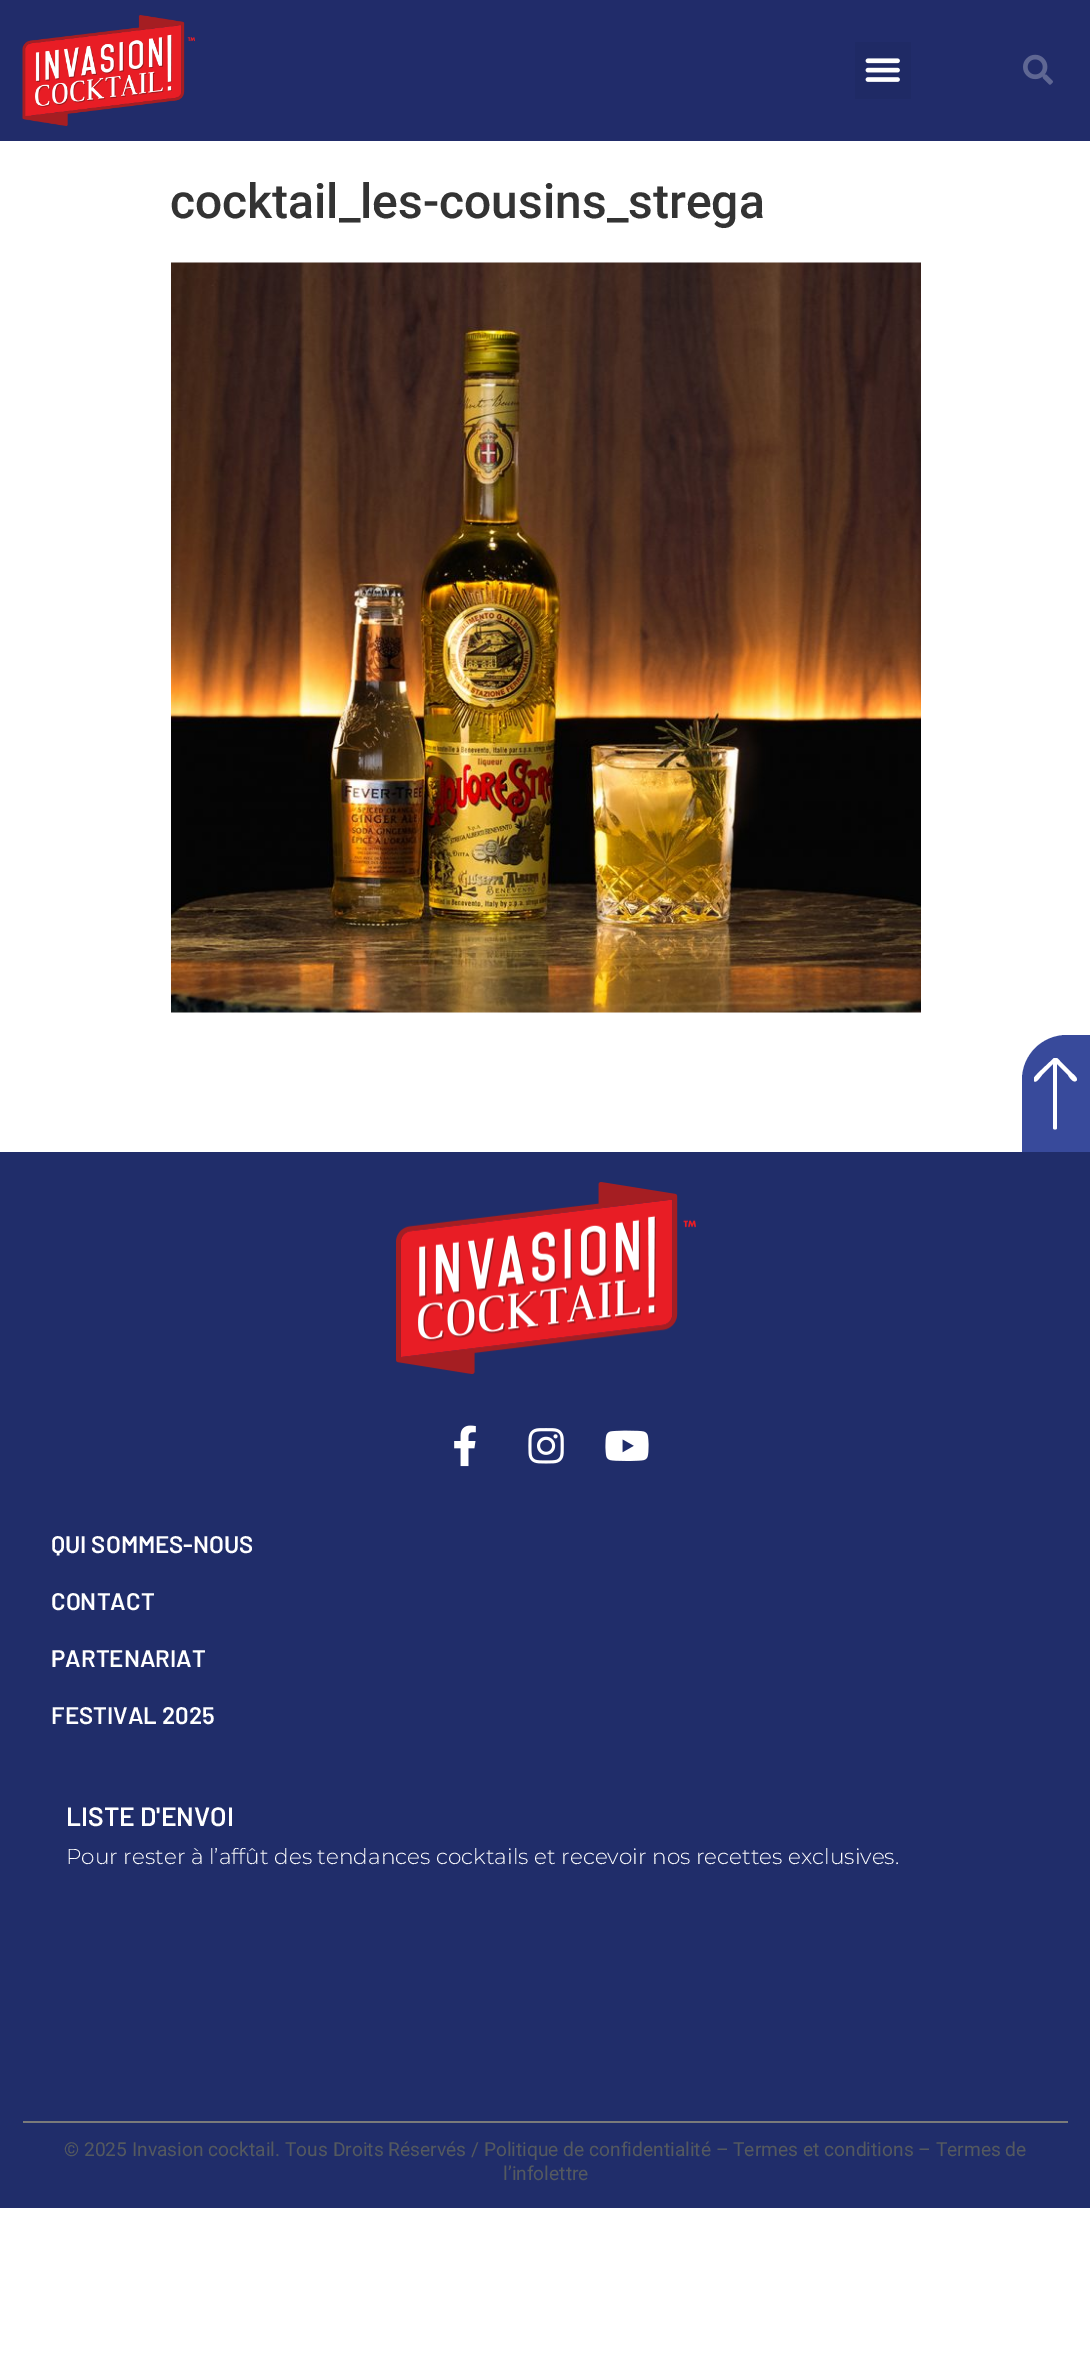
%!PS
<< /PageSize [1090 2376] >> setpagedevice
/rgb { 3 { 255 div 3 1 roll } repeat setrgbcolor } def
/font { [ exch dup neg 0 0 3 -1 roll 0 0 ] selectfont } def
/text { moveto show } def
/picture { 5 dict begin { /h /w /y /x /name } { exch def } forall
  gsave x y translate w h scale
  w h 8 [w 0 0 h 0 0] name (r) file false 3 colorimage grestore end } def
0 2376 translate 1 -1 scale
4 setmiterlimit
255 255 255 rgb
0 0 1090 2376 rectfill
33 44 106 rgb
0 0 1090 141 rectfill
(img_01.rgb) 22 15 173 111 picture
31 42 101 rgb
855 42 56 57 rectfill
(img_02.rgb) 865 58 35 24 picture
(img_03.rgb) 1023 54 30 31 picture
(img_04.rgb) 171 262 750 751 picture
56 74 155 rgb
1067 1035 moveto 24 0 rlineto 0 117 rlineto -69 0 rlineto 0 -72 rlineto 0 -25 20 -45 45 -45 rcurveto closepath fill
gsave
1034 1058 43 72 rectclip
255 255 255 rgb
1054 1058 moveto -17 16 rlineto 0 1 -5 4 -3 7 rcurveto 2 3 7 -5 8 -6 rcurveto 11 -11 rlineto 0 64 rlineto 0 2 4 2 4 0 rcurveto 0 -64 rlineto 11 11 rlineto 1 2 5 8 8 6 rcurveto 3 -2 -2 -6 -3 -7 rcurveto -13 -13 rlineto -1 -1 -4 -5 -6 -3 rcurveto closepath fill
grestore
32 45 106 rgb
0 1152 1090 1056 rectfill
(img_05.rgb) 396 1182 300 192 picture
(img_06.rgb) 454 1425 22 42 picture
(img_07.rgb) 528 1428 36 36 picture
(img_08.rgb) 605 1430 44 31 picture
122 122 122 rgb
23 2121 1045 2 rectfill
/Roboto-Medium 48 font
51 51 51 rgb
(cocktail_les-cousins_strega) 170 218 text
/Barlow-SemiBold 24 font
255 255 255 rgb
(QUI SOMMES-NOUS) 51 1553 text
(CONTACT) 51 1610 text
(PARTENARIAT) 51 1667 text
(FESTIVAL 2025) 51 1724 text
/Barlow-SemiBold 26.5 font
(LISTE D'ENVOI) 66 1826 text
/Montserrat-Light 21.6 font
(Pour rester à l’affût des tendances cocktails et recevoir nos recettes exclusives.) 66 1864 text
/Roboto-Regular 19.2 font
84 89 95 rgb
(© 2025 Invasion cocktail. Tous Droits Réservés / Politique de confidentialité – Termes et conditions – Termes de) 64 2156 text
(l’infolettre) 503 2180 text
showpage
